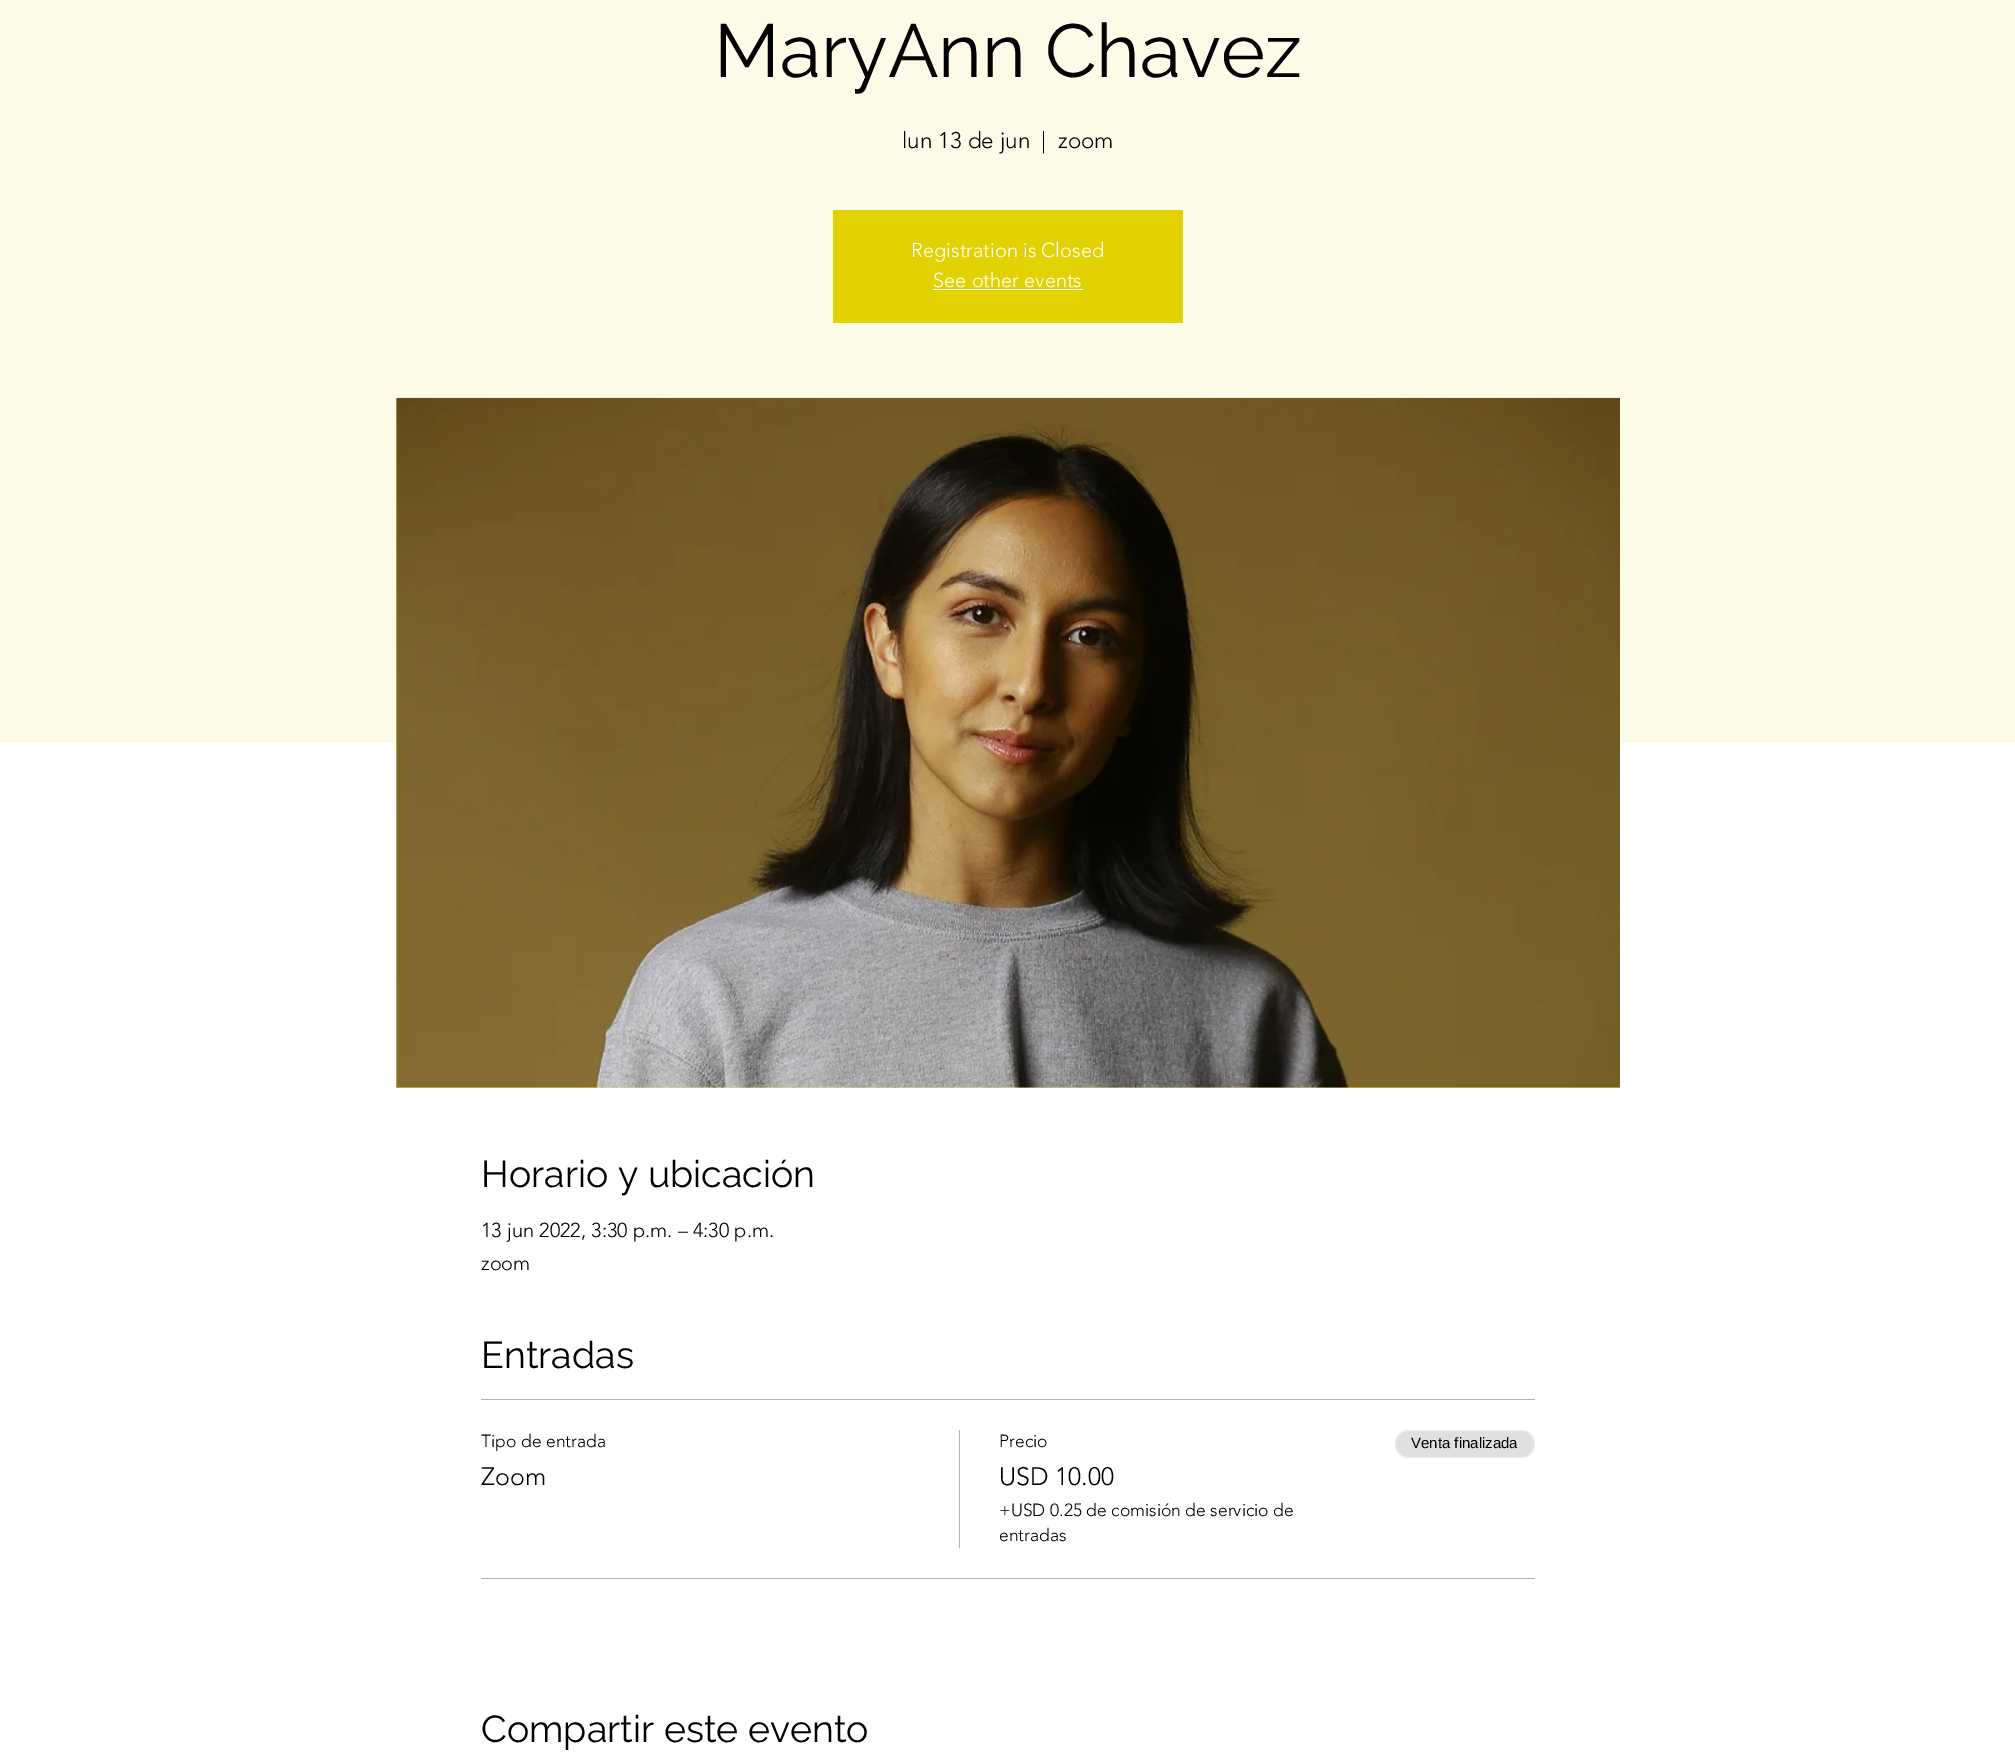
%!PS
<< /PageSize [2015 1761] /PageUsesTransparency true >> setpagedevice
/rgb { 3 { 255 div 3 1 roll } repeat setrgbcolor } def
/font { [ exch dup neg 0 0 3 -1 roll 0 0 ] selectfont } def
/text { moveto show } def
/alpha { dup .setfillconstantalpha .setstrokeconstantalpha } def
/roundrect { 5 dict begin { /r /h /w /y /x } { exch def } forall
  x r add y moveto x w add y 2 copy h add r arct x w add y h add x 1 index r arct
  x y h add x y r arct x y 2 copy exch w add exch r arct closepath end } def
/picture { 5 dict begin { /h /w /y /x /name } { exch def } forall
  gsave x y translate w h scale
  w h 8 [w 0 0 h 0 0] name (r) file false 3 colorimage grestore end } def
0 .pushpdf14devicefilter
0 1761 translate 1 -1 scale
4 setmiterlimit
255 255 255 rgb
0 0 2015 1761 rectfill
253 251 231 rgb
0 0 2015 743 rectfill
226 210 3 rgb
833 210 350 113 rectfill
255 255 255 rgb
933 289 150 1 rectfill
253 239 70 rgb
396 398 1224 690 rectfill
(img_01.rgb) 396 397 1224 691 picture
179 179 179 rgb
481 1399 1054 1 rectfill
481 1578 1054 1 rectfill
959 1430 1 118 rectfill
224 224 224 rgb
1395 1430 140 28 14 roundrect fill
0.4 alpha
255 255 255 rgb
1395.5 1430.5 139 27 13.5 roundrect stroke
/Raleway-Regular 75 font
1 alpha
0 0 0 rgb
(MaryAnn Chavez) 714 77 text
/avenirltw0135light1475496-Light 22.5 font
(lun 13 de jun) 902 148 text
(|) 1041 148 text
(zoom) 1058 148 text
/avenirltw0135light1475496-Light 20 font
255 255 255 rgb
(Registration is Closed) 911 257 text
(See other events) 933 287 text
/Raleway-Regular 37.5 font
0 0 0 rgb
(Horario y ubicación) 481 1187 text
/avenirltw0135light1475496-Light 20 font
(13 jun 2022, 3:30 p.m. – 4:30 p.m.) 481 1237 text
(zoom) 481 1270 text
/Raleway-Regular 37.5 font
(Entradas) 481 1368 text
/avenirltw0135light1475496-Light 17.5 font
(Tipo de entrada) 481 1447 text
/avenirltw0135light1475496-Light 25 font
(Zoom) 481 1485 text
/avenirltw0135light1475496-Light 17.5 font
(Precio) 999 1447 text
/avenirltw0135light1475496-Light 25 font
(USD 10.00) 999 1485 text
/avenirltw0135light1475496-Light 17.5 font
(+USD 0.25 de comisión de servicio de) 999 1516 text
(entradas) 999 1541 text
/LiberationSans-Regular 15 font
(Venta finalizada) 1411 1448 text
/Raleway-Regular 37.5 font
(Compartir este evento) 481 1742 text
.poppdf14devicefilter showpage
